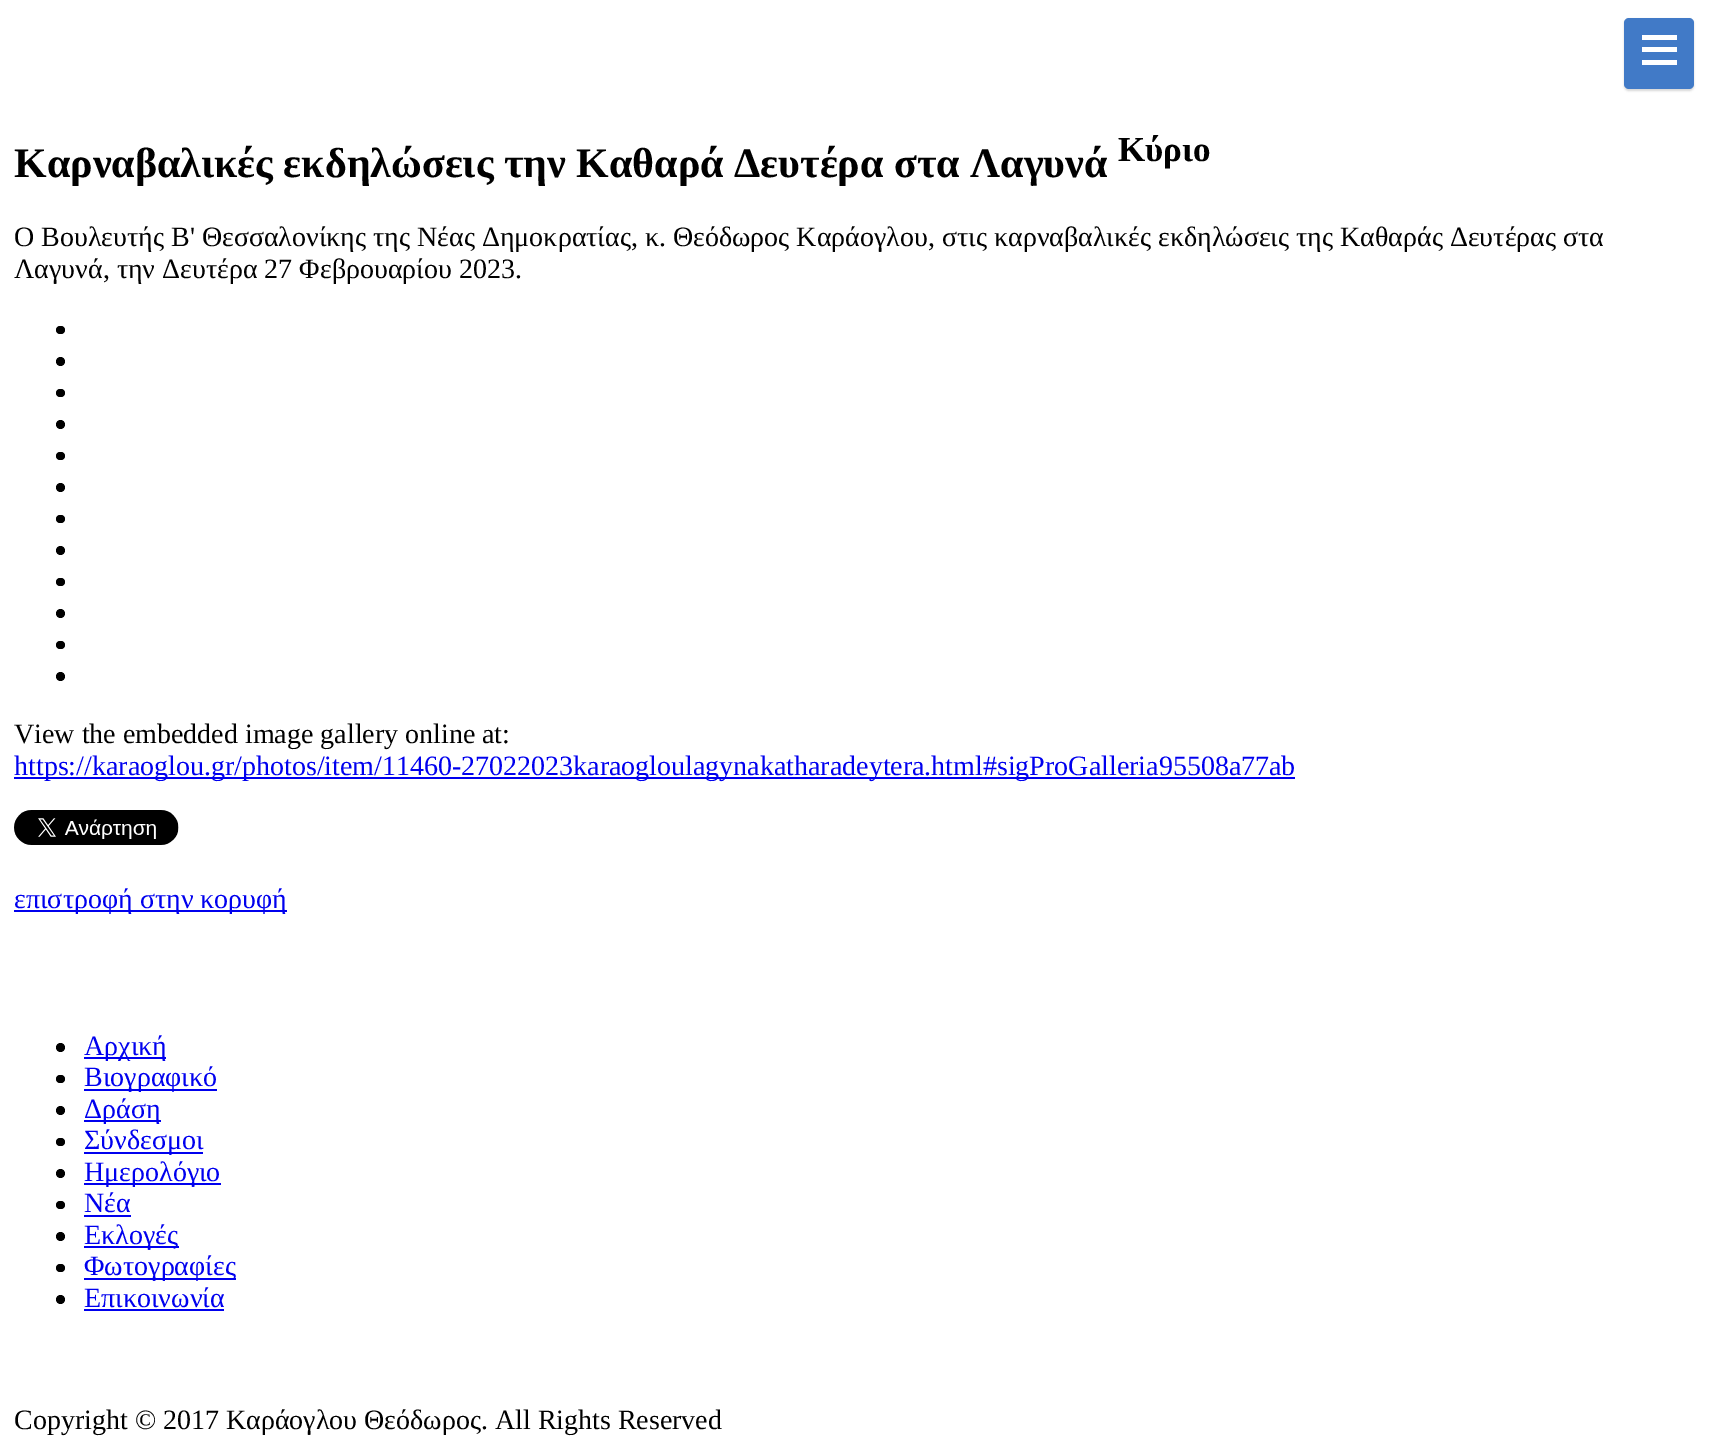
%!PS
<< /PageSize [1711 1437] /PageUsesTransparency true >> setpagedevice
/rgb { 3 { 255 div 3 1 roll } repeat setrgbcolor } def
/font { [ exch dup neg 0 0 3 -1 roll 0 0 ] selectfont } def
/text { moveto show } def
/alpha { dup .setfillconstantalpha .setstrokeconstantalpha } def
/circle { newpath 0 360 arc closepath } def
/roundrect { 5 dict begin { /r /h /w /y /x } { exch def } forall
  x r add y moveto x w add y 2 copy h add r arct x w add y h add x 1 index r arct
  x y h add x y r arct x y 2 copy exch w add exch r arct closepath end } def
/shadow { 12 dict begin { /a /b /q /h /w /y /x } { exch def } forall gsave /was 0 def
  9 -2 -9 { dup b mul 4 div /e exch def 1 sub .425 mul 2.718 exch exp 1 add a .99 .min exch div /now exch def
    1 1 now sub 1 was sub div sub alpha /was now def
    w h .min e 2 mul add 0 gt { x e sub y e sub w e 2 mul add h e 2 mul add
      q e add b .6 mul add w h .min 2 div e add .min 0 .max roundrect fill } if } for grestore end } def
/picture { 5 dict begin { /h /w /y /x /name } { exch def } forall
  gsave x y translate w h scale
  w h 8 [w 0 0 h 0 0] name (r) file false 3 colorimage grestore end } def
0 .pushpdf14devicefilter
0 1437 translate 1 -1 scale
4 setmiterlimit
255 255 255 rgb
0 0 1711 1437 rectfill
0 0 0 rgb
1624 19 70 72 5 1 0.15 shadow
65 122 199 rgb
1624 18 70 71 5 roundrect fill
255 255 255 rgb
1642 35 35 5 rectfill
1642 47 35 5 rectfill
1642 60 35 5 rectfill
0 0 0 rgb
56 326 9 8 4 roundrect fill
60.5 361.5 4.5 circle fill
56 389 9 8 4 roundrect fill
60.5 424.5 4.5 circle fill
56 452 9 8 4 roundrect fill
60.5 487.5 4.5 circle fill
56 515 9 8 4 roundrect fill
60.5 550.5 4.5 circle fill
56 578 9 8 4 roundrect fill
60.5 613.5 4.5 circle fill
56 641 9 8 4 roundrect fill
60.5 676.5 4.5 circle fill
0 0 238 rgb
14 777 1281 2 rectfill
(img_01.rgb) 14 810 165 35 picture
14 910 273 2 rectfill
0 0 0 rgb
60.5 1047.5 4.5 circle fill
0 0 238 rgb
84 1057 82 2 rectfill
0 0 0 rgb
56 1075 9 8 4 roundrect fill
0 0 238 rgb
84 1089 133 2 rectfill
0 0 0 rgb
60.5 1110.5 4.5 circle fill
0 0 238 rgb
84 1120 77 2 rectfill
0 0 0 rgb
56 1138 9 8 4 roundrect fill
0 0 238 rgb
84 1152 119 2 rectfill
0 0 0 rgb
60.5 1173.5 4.5 circle fill
0 0 238 rgb
84 1183 137 2 rectfill
0 0 0 rgb
56 1201 9 8 4 roundrect fill
0 0 238 rgb
84 1215 47 2 rectfill
0 0 0 rgb
60.5 1236.5 4.5 circle fill
0 0 238 rgb
84 1246 95 2 rectfill
0 0 0 rgb
56 1264 9 8 4 roundrect fill
0 0 238 rgb
84 1278 152 2 rectfill
0 0 0 rgb
60.5 1299.5 4.5 circle fill
0 0 238 rgb
84 1309 140 2 rectfill
/LiberationSerif-Bold 42 font
0 0 0 rgb
(Καρναβαλικές εκδηλώσεις την Καθαρά Δευτέρα στα Λαγυνά) 14 177 text
/LiberationSerif-Bold 35 font
(Κύριο) 1118 161 text
/LiberationSerif-Regular 28 font
(Ο Βουλευτής Β' Θεσσαλονίκης της Νέας Δημοκρατίας, κ. Θεόδωρος Καράογλου, στις καρναβαλικές εκδηλώσεις της Καθαράς Δευτέρας στα) 14 246 text
(Λαγυνά, την Δευτέρα 27 Φεβρουαρίου 2023.) 14 278 text
(View the embedded image gallery online at:) 14 743 text
0 0 238 rgb
(https://karaoglou.gr/photos/item/11460-27022023karaogloulagynakatharadeytera.html#sigProGalleria95508a77ab) 14 775 text
(επιστροφή στην κορυφή) 14 908 text
(Αρχική) 84 1055 text
(Βιογραφικό) 84 1086 text
(Δράση) 84 1118 text
(Σύνδεσμοι) 84 1149 text
(Ημερολόγιο) 84 1181 text
(Νέα) 84 1212 text
(Εκλογές) 84 1244 text
(Φωτογραφίες) 84 1275 text
(Επικοινωνία) 84 1307 text
0 0 0 rgb
(Copyright © 2017 Καράογλου Θεόδωρος. All Rights Reserved) 14 1429 text
.poppdf14devicefilter showpage
